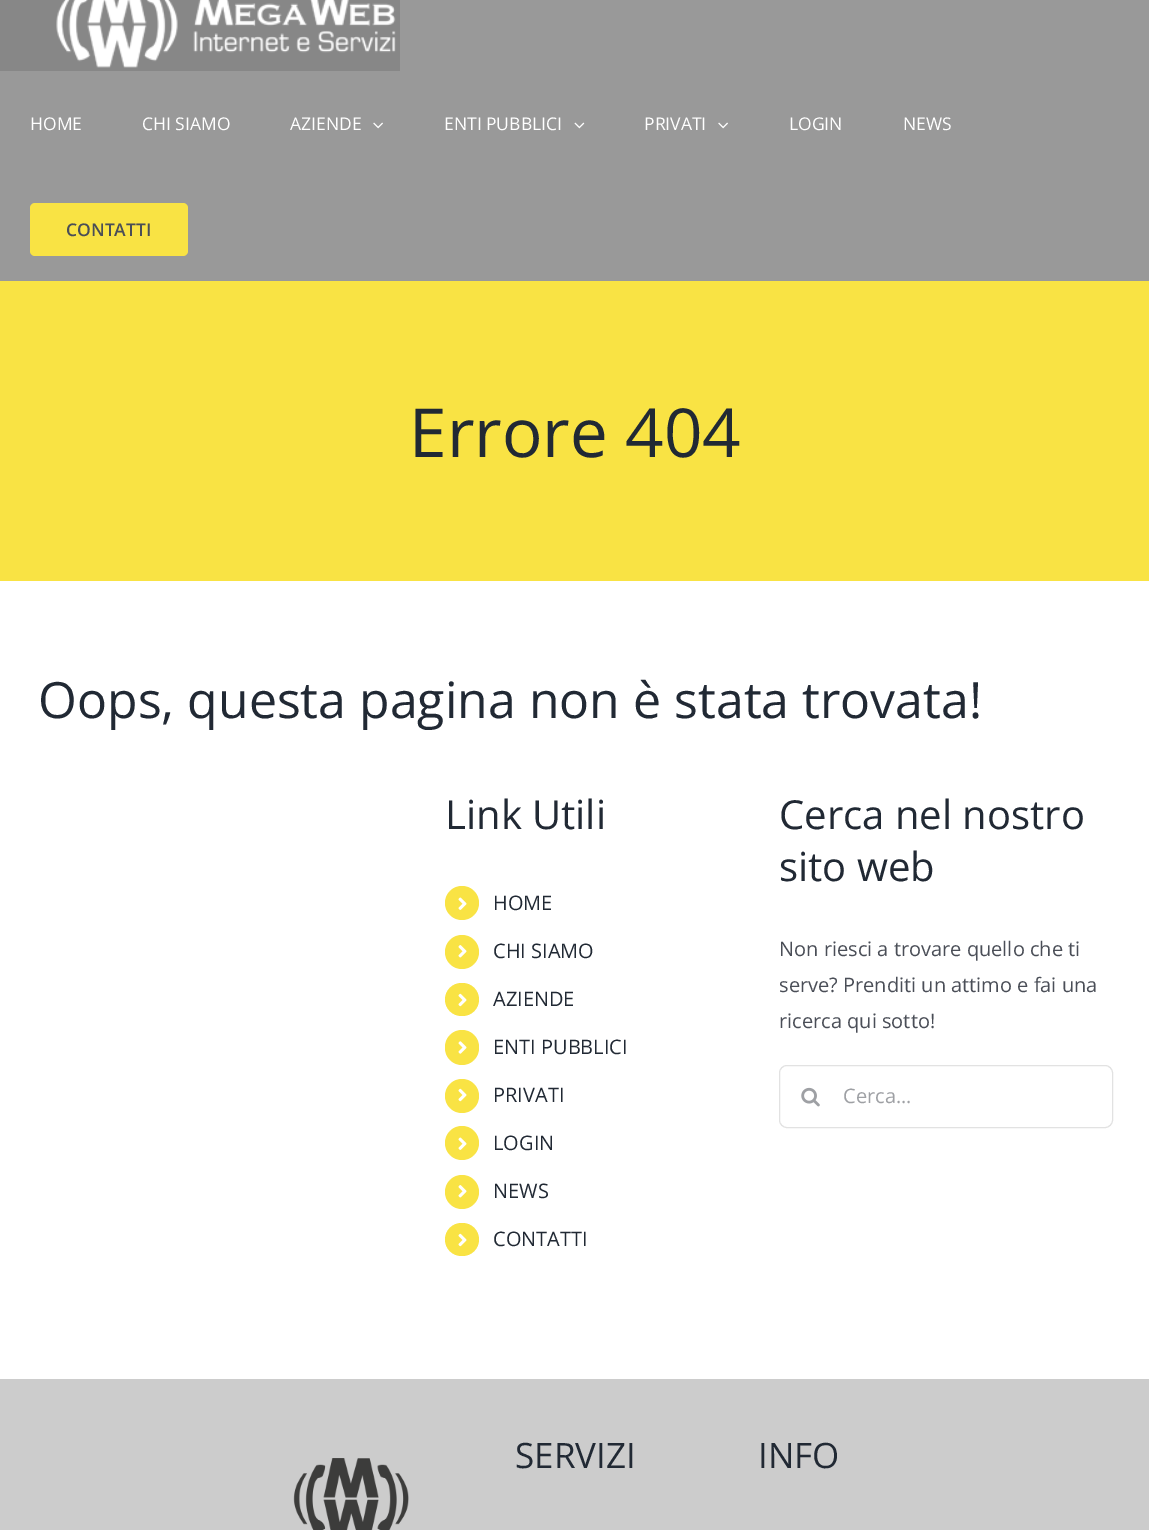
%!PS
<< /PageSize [1149 1530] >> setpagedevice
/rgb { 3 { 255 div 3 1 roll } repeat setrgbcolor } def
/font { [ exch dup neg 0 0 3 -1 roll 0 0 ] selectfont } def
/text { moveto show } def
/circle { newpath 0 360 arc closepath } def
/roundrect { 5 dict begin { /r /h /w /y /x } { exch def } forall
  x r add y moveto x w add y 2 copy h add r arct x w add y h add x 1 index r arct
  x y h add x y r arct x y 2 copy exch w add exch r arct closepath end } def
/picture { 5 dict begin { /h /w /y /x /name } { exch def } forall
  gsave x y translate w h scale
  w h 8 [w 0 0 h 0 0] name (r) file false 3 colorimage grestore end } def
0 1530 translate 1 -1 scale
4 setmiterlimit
255 255 255 rgb
0 0 1149 1530 rectfill
153 153 153 rgb
0 0 1149 281 rectfill
135 135 135 rgb
0 0 400 71 rectfill
(img_01.rgb) 56 0 340 68 picture
(img_02.rgb) 373 122 10 7 picture
(img_03.rgb) 574 122 11 7 picture
(img_02.rgb) 718 122 10 7 picture
249 227 68 rgb
30 203 158 53 5 roundrect fill
0 281 1149 300 rectfill
462 903 17 circle fill
(img_04.rgb) 458 897 9 13 picture
462 952 17 circle fill
(img_05.rgb) 458 945 9 13 picture
445 983 34 33 16.5 roundrect fill
(img_06.rgb) 458 993 9 14 picture
445 1030 34 35 17 roundrect fill
(img_07.rgb) 458 1041 9 13 picture
462 1096 17 circle fill
(img_06.rgb) 458 1088 9 14 picture
462 1143 17 circle fill
(img_04.rgb) 458 1137 9 13 picture
462 1192 17 circle fill
(img_05.rgb) 458 1185 9 13 picture
445 1223 34 33 16.5 roundrect fill
(img_06.rgb) 458 1233 9 14 picture
226 226 226 rgb
779.5 1065.5 333 62 7.5 roundrect stroke
(img_08.rgb) 801 1087 19 20 picture
204 204 204 rgb
0 1379 1149 151 rectfill
(img_09.rgb) 293 1458 116 72 picture
/OpenSans-Regular 17.5 font
255 255 255 rgb
(HOME) 30 130 text
(CHI SIAMO) 142 130 text
(AZIENDE) 290 130 text
(ENTI PUBBLICI) 444 130 text
(PRIVATI) 644 130 text
(LOGIN) 789 130 text
(NEWS) 903 130 text
/OpenSans-SemiBold 17.5 font
74 78 87 rgb
(CONTATTI) 66 236 text
/OpenSans-Regular 67.5 font
33 41 52 rgb
(Errore 404) 409 457 text
/OpenSans-Regular 50 font
(Oops, questa pagina non è stata trovata!) 38 718 text
/OpenSans-Regular 40 font
(Link Utili) 445 829 text
/OpenSans-Regular 20 font
(HOME) 493 910 text
(CHI SIAMO) 493 958 text
(AZIENDE) 493 1006 text
(ENTI PUBBLICI) 493 1054 text
(PRIVATI) 493 1102 text
(LOGIN) 493 1150 text
(NEWS) 493 1198 text
(CONTATTI) 493 1246 text
/OpenSans-Regular 40 font
(Cerca nel nostro) 779 829 text
(sito web) 779 881 text
/OpenSans-Regular 20 font
74 78 87 rgb
(Non riesci a trovare quello che ti) 779 956 text
(serve? Prenditi un attimo e fai una) 779 992 text
(ricerca qui sotto!) 779 1028 text
158 160 164 rgb
(Cerca...) 843 1103 text
/OpenSans-Regular 35 font
33 41 52 rgb
(SERVIZI) 515 1468 text
(INFO) 758 1468 text
showpage
